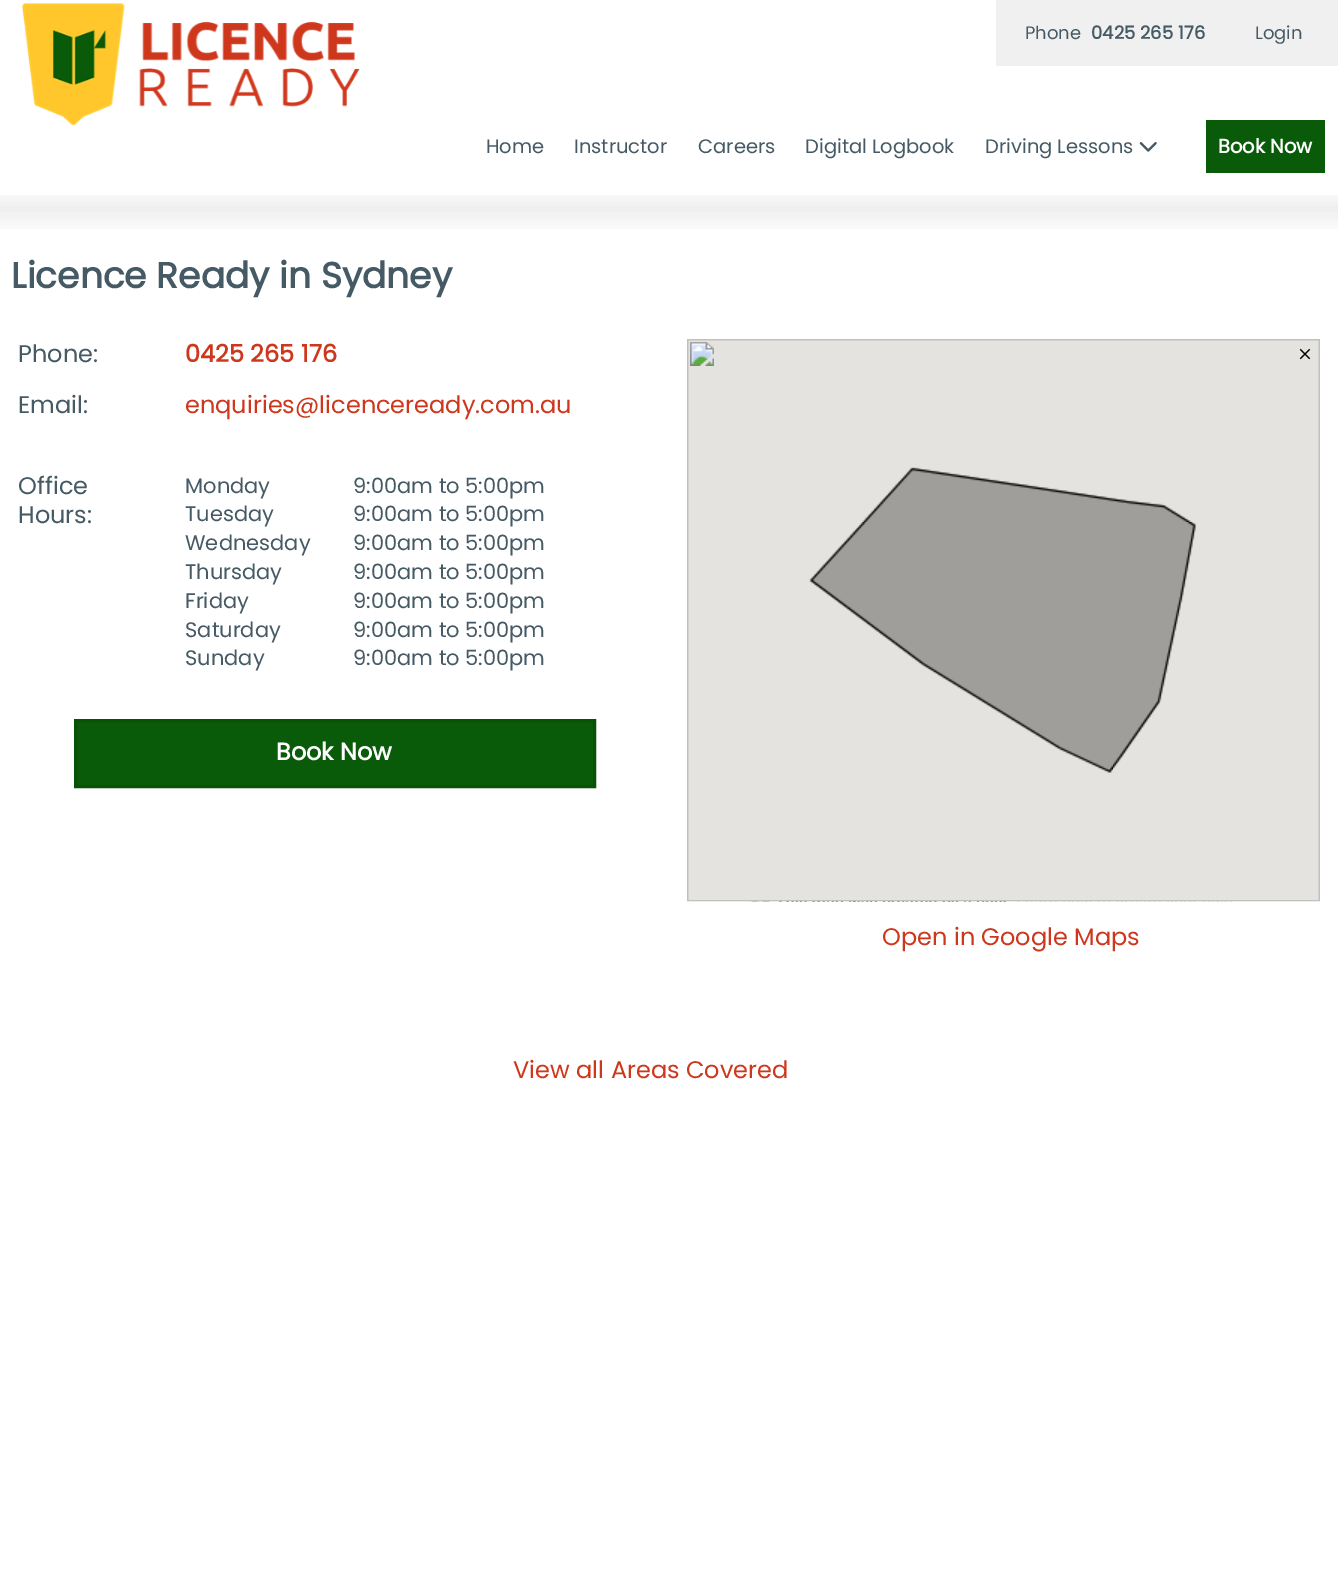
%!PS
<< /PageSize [1338 1588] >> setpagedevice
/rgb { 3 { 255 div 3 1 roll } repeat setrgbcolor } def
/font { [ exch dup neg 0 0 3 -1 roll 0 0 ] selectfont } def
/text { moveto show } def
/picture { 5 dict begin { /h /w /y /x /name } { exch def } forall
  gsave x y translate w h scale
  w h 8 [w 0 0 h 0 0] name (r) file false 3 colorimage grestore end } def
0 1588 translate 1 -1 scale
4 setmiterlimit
255 255 255 rgb
0 0 1338 1588 rectfill
(img_01.rgb) 22 3 338 122 picture
240 240 240 rgb
996 0 342 66 rectfill
(img_02.rgb) 1139 142 18 10 picture
9 91 9 rgb
1206 120 119 53 rectfill
(img_03.rgb) 0 195 1338 34 picture
75.5 720.5 moveto 519 0 rlineto 0 66 rlineto -519 0 rlineto closepath gsave fill grestore
8 82 8 rgb
3 setlinewidth
stroke
(img_04.rgb) 687 339 633 563 picture
/Poppins-Regular 18 font
69 90 100 rgb
(Phone) 1025 39 text
/Poppins-Bold 18 font
(0425 265 176) 1091 39 text
/Poppins-Regular 18 font
(Login) 1255 39 text
/Poppins-Regular 19.5 font
(Home) 486 153 text
(Instructor) 574 153 text
(Careers) 698 153 text
(Digital Logbook) 805 153 text
(Driving Lessons) 985 153 text
/Poppins-Bold 19.5 font
255 255 255 rgb
(Book Now) 1218 153 text
/Poppins-Bold 36 font
69 90 100 rgb
(Licence Ready in Sydney) 11 288 text
/Poppins-Regular 24 font
(Phone:) 18 362 text
/Poppins-Bold 24 font
205 55 28 rgb
(0425 265 176) 185 362 text
/Poppins-Regular 24 font
69 90 100 rgb
(Email:) 18 413 text
205 55 28 rgb
(enquiries@licenceready.com.au) 185 413 text
69 90 100 rgb
(Office) 18 494 text
(Hours:) 18 523 text
/Poppins-Regular 21 font
(Monday) 185 493 text
(9:00am to 5:00pm) 353 493 text
(Tuesday) 185 521 text
(9:00am to 5:00pm) 353 521 text
(Wednesday) 185 550 text
(9:00am to 5:00pm) 353 550 text
(Thursday) 185 579 text
(9:00am to 5:00pm) 353 579 text
(Friday) 185 608 text
(9:00am to 5:00pm) 353 608 text
(Saturday) 185 637 text
(9:00am to 5:00pm) 353 637 text
(Sunday) 185 665 text
(9:00am to 5:00pm) 353 665 text
/Poppins-Bold 24 font
255 255 255 rgb
(Book Now) 276 760 text
/Poppins-Regular 24 font
205 55 28 rgb
(Open in Google Maps) 882 945 text
(View all Areas Covered) 513 1078 text
showpage
